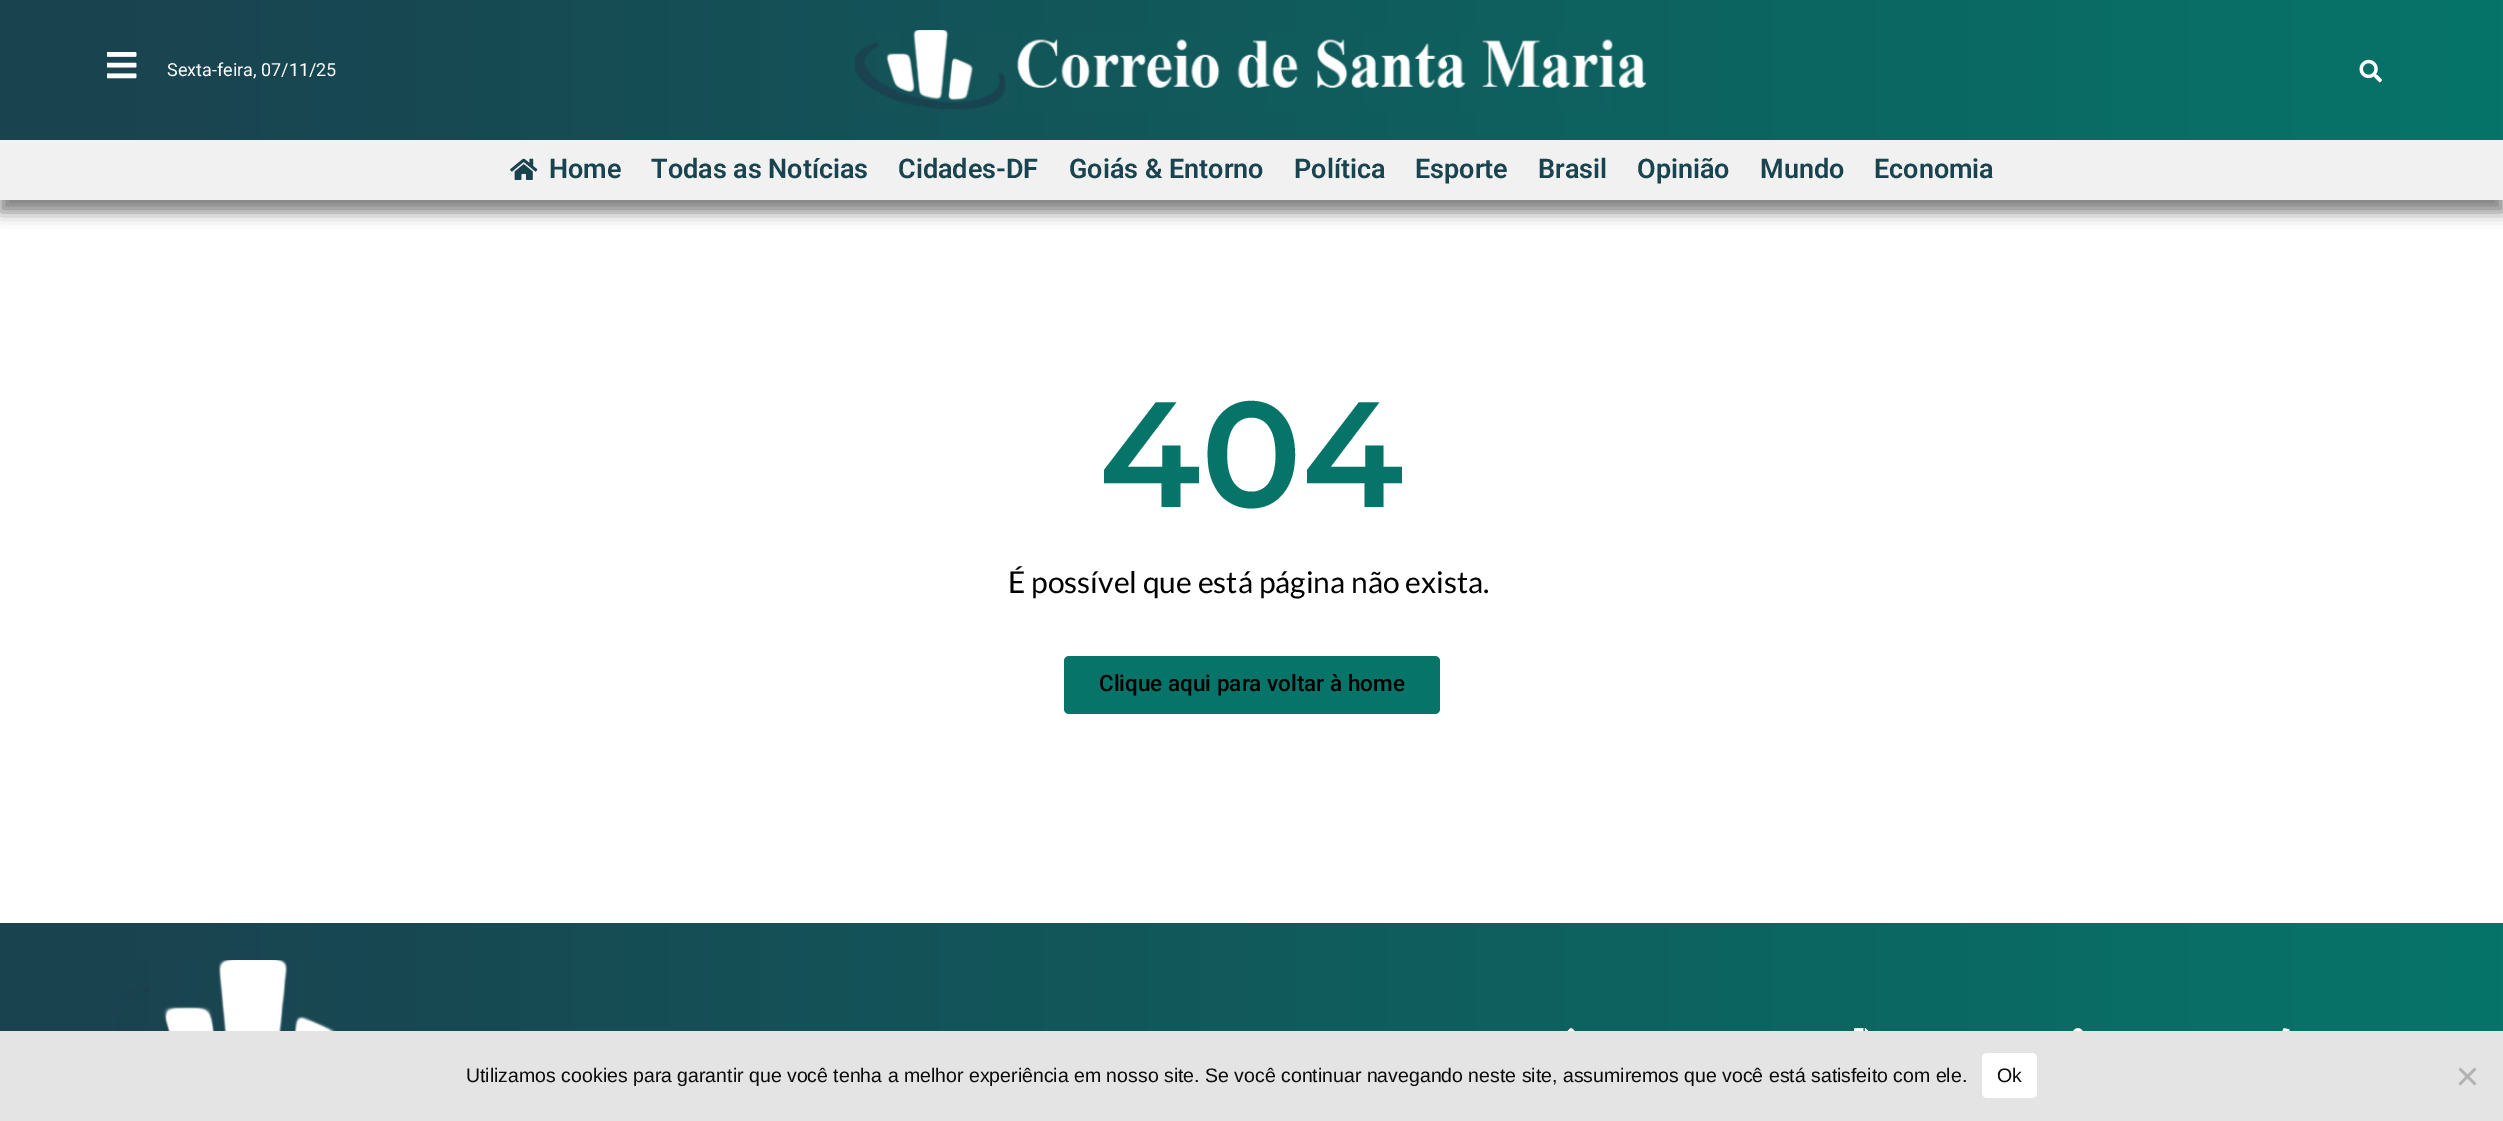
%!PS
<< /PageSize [2503 1121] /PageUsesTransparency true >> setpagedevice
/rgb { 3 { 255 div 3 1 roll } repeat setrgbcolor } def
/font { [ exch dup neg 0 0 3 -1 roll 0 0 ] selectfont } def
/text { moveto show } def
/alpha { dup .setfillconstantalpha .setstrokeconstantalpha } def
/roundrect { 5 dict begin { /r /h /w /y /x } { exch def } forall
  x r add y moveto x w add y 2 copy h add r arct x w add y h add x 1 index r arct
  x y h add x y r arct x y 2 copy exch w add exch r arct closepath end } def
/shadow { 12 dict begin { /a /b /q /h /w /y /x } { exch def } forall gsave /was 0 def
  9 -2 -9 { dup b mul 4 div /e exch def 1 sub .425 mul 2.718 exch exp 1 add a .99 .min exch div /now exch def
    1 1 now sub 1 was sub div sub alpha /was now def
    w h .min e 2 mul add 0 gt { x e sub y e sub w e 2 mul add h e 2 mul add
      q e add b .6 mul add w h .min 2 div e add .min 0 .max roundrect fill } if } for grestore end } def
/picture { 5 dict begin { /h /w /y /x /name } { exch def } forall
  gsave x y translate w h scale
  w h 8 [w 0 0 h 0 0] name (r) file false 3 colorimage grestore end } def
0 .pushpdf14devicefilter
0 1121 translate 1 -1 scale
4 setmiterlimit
255 255 255 rgb
0 0 2503 1121 rectfill
gsave
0 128 moveto 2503 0 rlineto 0 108 rlineto -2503 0 rlineto closepath 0 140 moveto 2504 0 rlineto 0 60 rlineto -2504 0 rlineto closepath eoclip newpath
0 0 0 rgb
0 152 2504 60 0 7.5 0.5 shadow
grestore
gsave 0 0 moveto 2503 0 rlineto 0 140 rlineto -2503 0 rlineto closepath clip newpath
<< /ShadingType 2 /ColorSpace /DeviceRGB /Coords [0 70 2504 70] /Extend [true true] /Function << /FunctionType 3 /Domain [0 1] /Functions [<< /FunctionType 2 /Domain [0 1] /C0 [0.102 0.263 0.314] /C1 [0.102 0.263 0.314] /N 1 >> << /FunctionType 2 /Domain [0 1] /C0 [0.102 0.263 0.314] /C1 [0.024 0.455 0.412] /N 1 >>] /Bounds [0.05] /Encode [0 1 0 1] >> >> shfill grestore
(img_01.rgb) 107 52 30 27 picture
(img_02.rgb) 855 30 792 80 picture
(img_03.rgb) 2359 59 23 24 picture
0.5 alpha
228 228 228 rgb
0 140 2503 60 rectfill
1 alpha
(img_04.rgb) 510 158 28 22 picture
6 116 105 rgb
1064 656 376 58 5 roundrect fill
gsave 0 923 moveto 2503 0 rlineto 0 108 rlineto -2503 0 rlineto closepath clip newpath
<< /ShadingType 2 /ColorSpace /DeviceRGB /Coords [0 1040 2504 1040] /Extend [true true] /Function << /FunctionType 3 /Domain [0 1] /Functions [<< /FunctionType 2 /Domain [0 1] /C0 [0.102 0.263 0.314] /C1 [0.102 0.263 0.314] /N 1 >> << /FunctionType 2 /Domain [0 1] /C0 [0.102 0.263 0.314] /C1 [0.024 0.455 0.412] /N 1 >>] /Bounds [0.05] /Encode [0 1 0 1] >> >> shfill grestore
(img_05.rgb) 112 960 224 71 picture
(img_06.rgb) 1567 1028 8 3 picture
(img_07.rgb) 1854 1028 15 3 picture
(img_08.rgb) 2073 1028 10 3 picture
(img_09.rgb) 2282 1028 8 3 picture
228 228 228 rgb
0 1031 2503 90 rectfill
255 255 255 rgb
1982 1053 55 45 5 roundrect fill
178 178 178 rgb
2474.5 1067.5 moveto 2 2 rlineto -16 16 rlineto -2 -2 rlineto closepath fill
2458.5 1069.5 moveto 2 -2 rlineto 16 16 rlineto -2 2 rlineto closepath fill
/Roboto-Regular 18 font
255 255 255 rgb
(Sexta-feira, 07/11/25) 167 76 text
/Roboto-SemiBold 27 font
26 67 80 rgb
(Home) 549 178 text
(Todas as Notícias) 651 178 text
(Cidades-DF) 898 178 text
(Goiás & Entorno) 1069 178 text
(Política) 1294 178 text
(Esporte) 1415 178 text
(Brasil) 1538 178 text
(Opinião) 1637 178 text
(Mundo) 1760 178 text
(Economia) 1874 178 text
/Montserrat-SemiBold 150 font
6 116 105 rgb
(404) 1099 507 text
/Lato-Regular 30 font
0 0 0 rgb
(É possível que está página não exista.) 1008 593 text
/Roboto-Medium 22.5 font
(Clique aqui para voltar à home) 1099 691 text
/LiberationSans-Regular 19.5 font
10 10 10 rgb
(Utilizamos cookies para garantir que você tenha a melhor experiência em nosso site. Se você continuar navegando neste site, assumiremos que você está satisfeito com ele.) 466 1082 text
(Ok) 1997 1082 text
.poppdf14devicefilter showpage
